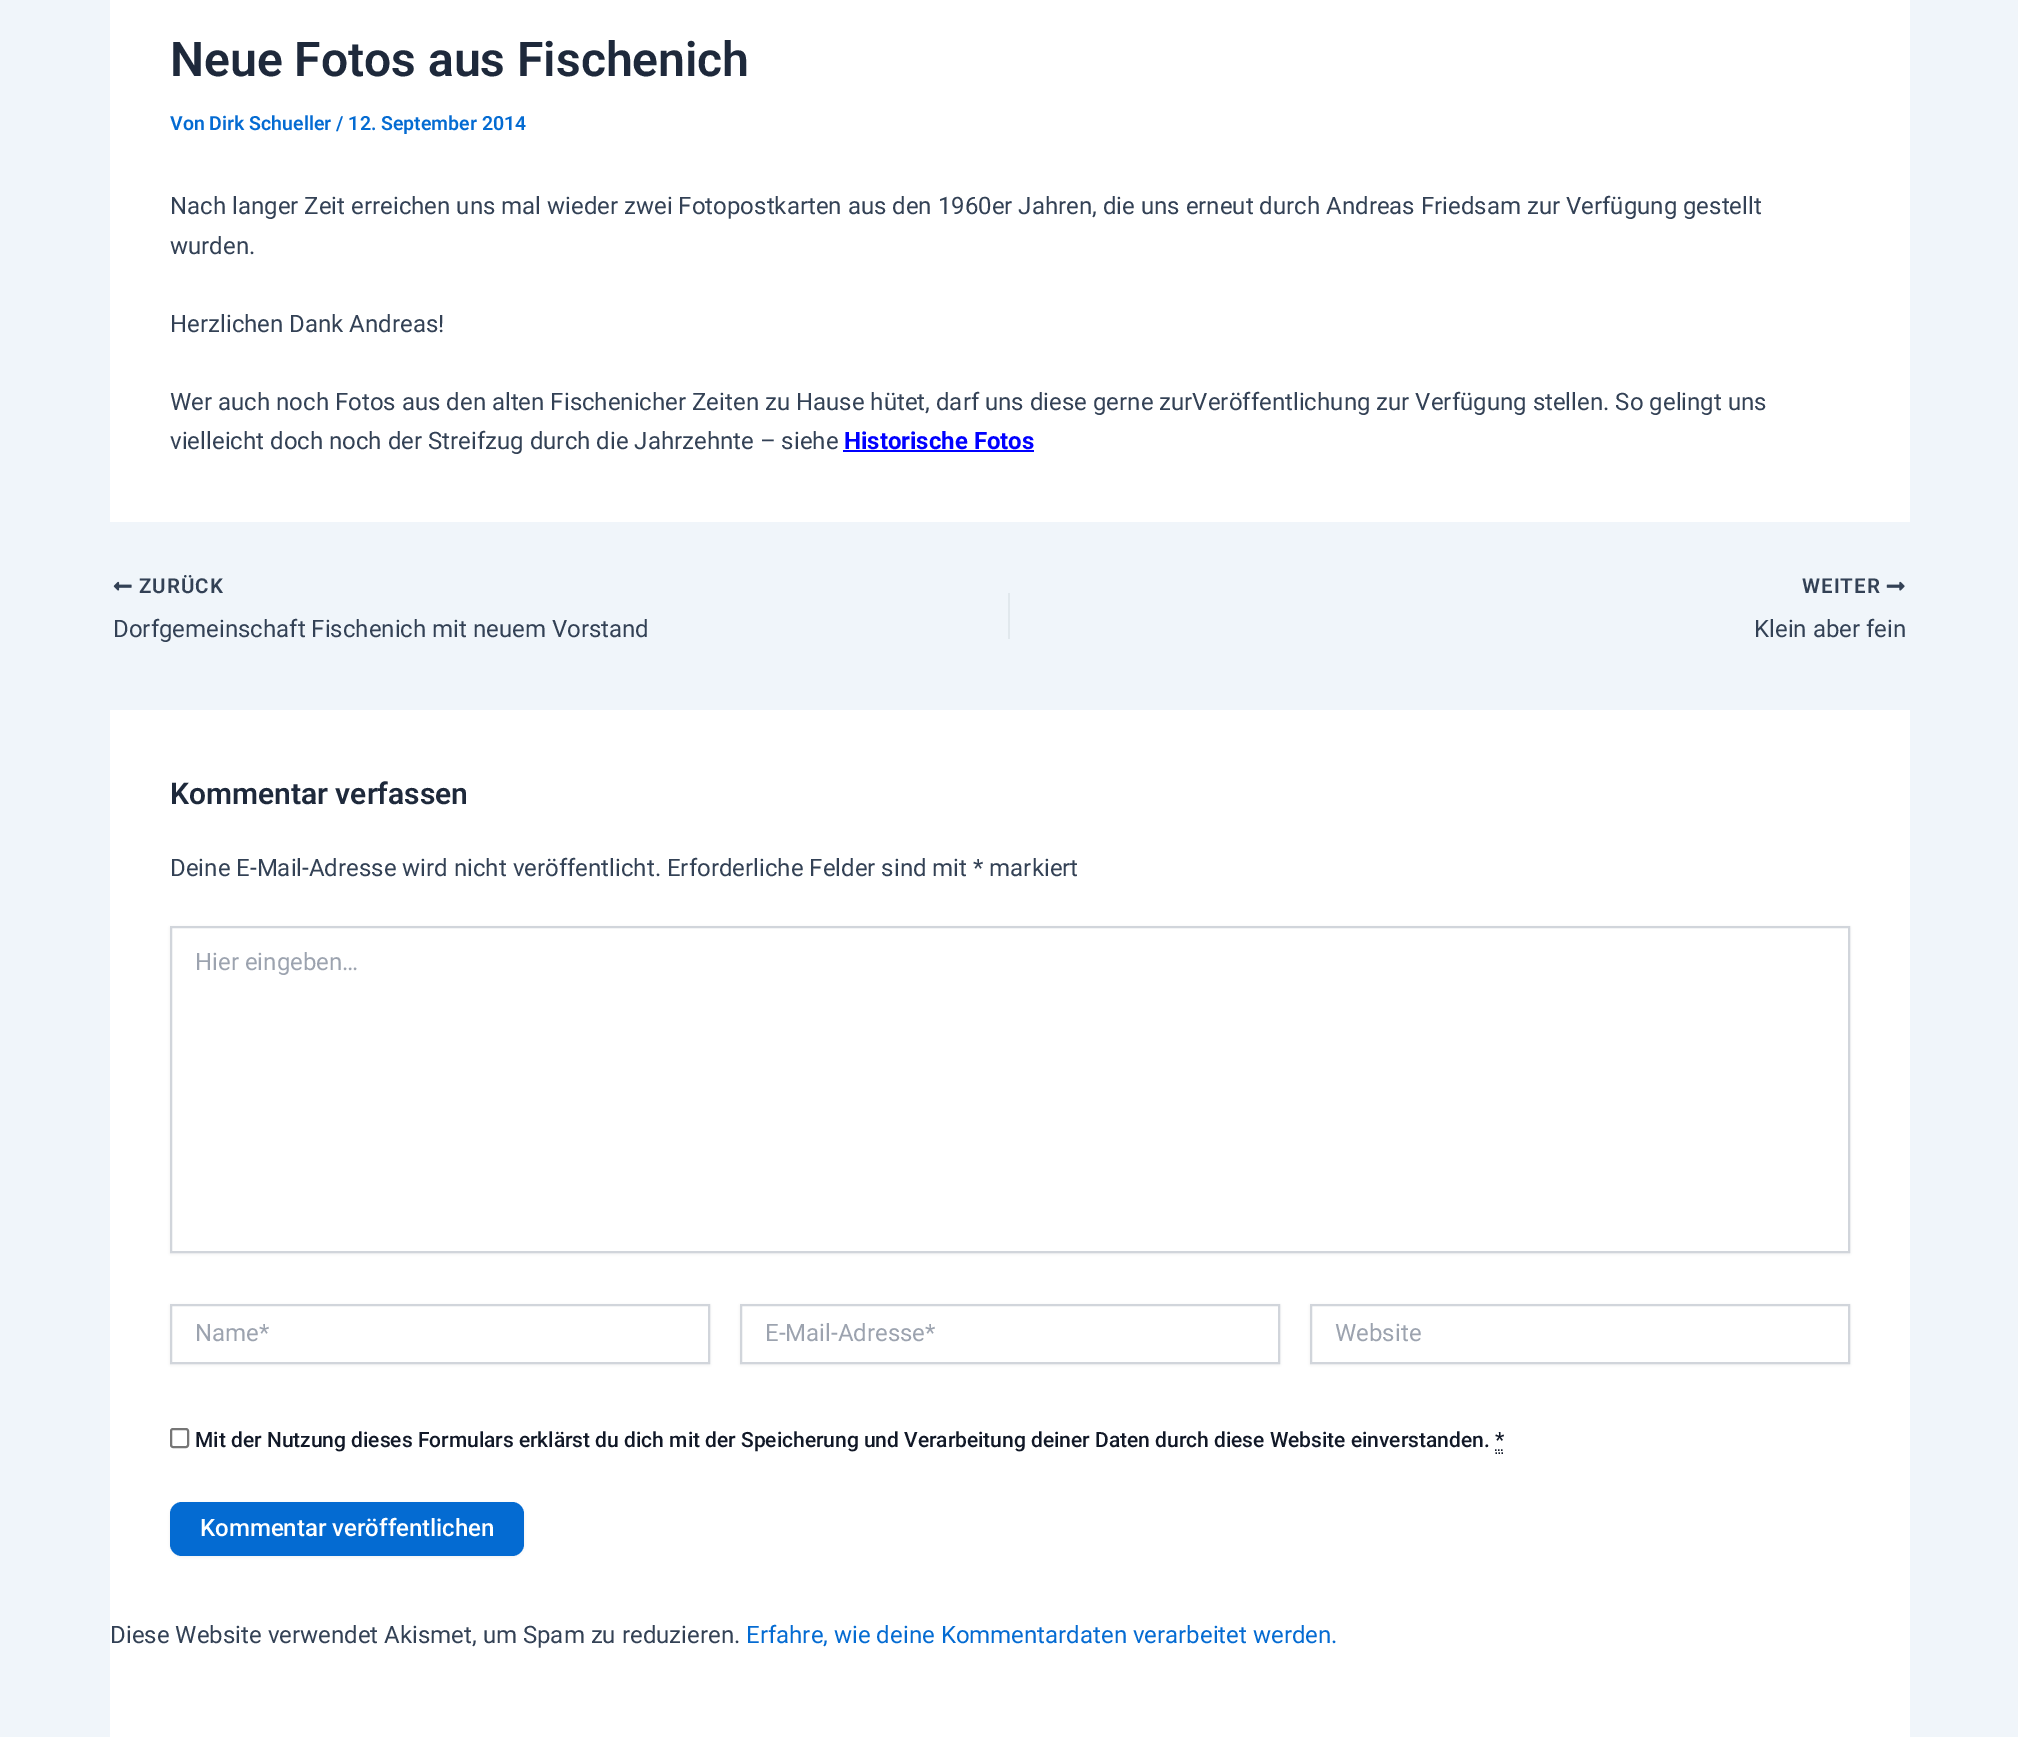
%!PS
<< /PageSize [2018 1737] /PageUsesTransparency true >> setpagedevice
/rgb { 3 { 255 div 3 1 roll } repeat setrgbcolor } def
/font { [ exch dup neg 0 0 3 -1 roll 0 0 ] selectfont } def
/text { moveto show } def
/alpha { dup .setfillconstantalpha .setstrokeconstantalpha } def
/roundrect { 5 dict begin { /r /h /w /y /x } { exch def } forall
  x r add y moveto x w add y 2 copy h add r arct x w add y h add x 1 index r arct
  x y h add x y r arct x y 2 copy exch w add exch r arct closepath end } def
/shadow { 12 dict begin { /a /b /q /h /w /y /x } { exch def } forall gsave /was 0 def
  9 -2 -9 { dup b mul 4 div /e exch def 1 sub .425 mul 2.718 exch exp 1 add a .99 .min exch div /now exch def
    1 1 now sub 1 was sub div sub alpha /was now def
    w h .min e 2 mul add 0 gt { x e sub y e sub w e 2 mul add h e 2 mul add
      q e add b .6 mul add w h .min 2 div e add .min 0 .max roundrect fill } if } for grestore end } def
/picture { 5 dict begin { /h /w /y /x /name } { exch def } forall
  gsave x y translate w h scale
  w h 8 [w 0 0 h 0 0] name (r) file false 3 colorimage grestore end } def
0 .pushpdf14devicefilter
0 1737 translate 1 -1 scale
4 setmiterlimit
240 245 250 rgb
0 0 2018 1737 rectfill
255 255 255 rgb
110 0 1800 522 rectfill
0 0 255 rgb
843 450 191 2 rectfill
(img_01.rgb) 113 581 19 10 picture
225 232 237 rgb
1008 593 2 46 rectfill
(img_02.rgb) 1886 581 19 10 picture
255 255 255 rgb
110 710 1800 1027 rectfill
0 0 0 rgb
170 927 1680 327 0 1.5 0.05 shadow
255 255 255 rgb
171 927 moveto 1678 0 rlineto 0 325 rlineto -1678 0 rlineto closepath gsave fill grestore
209 213 219 rgb
2 setlinewidth
stroke
0 0 0 rgb
170 1305 540 60 0 1.5 0.05 shadow
255 255 255 rgb
171 1305 moveto 538 0 rlineto 0 58 rlineto -538 0 rlineto closepath gsave fill grestore
209 213 219 rgb
stroke
0 0 0 rgb
740 1305 540 60 0 1.5 0.05 shadow
255 255 255 rgb
741 1305 moveto 538 0 rlineto 0 58 rlineto -538 0 rlineto closepath gsave fill grestore
209 213 219 rgb
stroke
0 0 0 rgb
1310 1305 540 60 0 1.5 0.05 shadow
255 255 255 rgb
1311 1305 moveto 538 0 rlineto 0 58 rlineto -538 0 rlineto closepath gsave fill grestore
209 213 219 rgb
stroke
118 118 118 rgb
171 1429 17 18 2 roundrect stroke
17 24 39 rgb
1.5 setlinewidth
1495.5 1453 moveto 1.5 0 rlineto 1498.5 1453 moveto 1.5 0 rlineto 1501.5 1453 moveto 1.5 0 rlineto 1495 1450 moveto 1.5 0 rlineto 1498 1450 moveto 1.5 0 rlineto 1501 1450 moveto 1.5 0 rlineto 1504 1450 moveto 0 0 rlineto stroke
0 0 0 rgb
170 1503 354 54 12 1.5 0.05 shadow
4 107 210 rgb
170 1502 354 54 12 roundrect fill
/Roboto-SemiBold 48 font
30 41 59 rgb
(Neue Fotos aus Fischenich) 170 76 text
/Roboto-SemiBold 19.5 font
4 107 210 rgb
(Von Dirk Schueller / 12. September 2014) 170 130 text
/Roboto-Regular 24 font
51 65 85 rgb
(Nach langer Zeit erreichen uns mal wieder zwei Fotopostkarten aus den 1960er Jahren, die uns erneut durch Andreas Friedsam zur Verfügung gestellt) 170 214 text
(wurden.) 170 254 text
(Herzlichen Dank Andreas!) 170 332 text
(Wer auch noch Fotos aus den alten Fischenicher Zeiten zu Hause hütet, darf uns diese gerne zurVeröffentlichung zur Verfügung stellen. So gelingt uns) 170 410 text
(vielleicht doch noch der Streifzug durch die Jahrzehnte – siehe) 170 449 text
/Roboto-Bold 24 font
0 0 255 rgb
(Historische Fotos) 844 449 text
/Roboto-SemiBold 20.5 font
51 65 85 rgb
139 593 moveto 1 0 (ZURÜCK) ashow
/Roboto-Regular 24 font
(Dorfgemeinschaft Fischenich mit neuem Vorstand) 113 637 text
/Roboto-SemiBold 20.5 font
1802 593 moveto 1 0 (WEITER) ashow
/Roboto-Regular 24 font
(Klein aber fein) 1754 637 text
/Roboto-SemiBold 30 font
30 41 59 rgb
(Kommentar verfassen) 170 804 text
/Roboto-Regular 24 font
51 65 85 rgb
(Deine E-Mail-Adresse wird nicht veröffentlicht. Erforderliche Felder sind mit * markiert) 170 876 text
156 163 175 rgb
(Hier eingeben…) 195 970 text
(Name*) 195 1341 text
(E-Mail-Adresse*) 765 1341 text
(Website) 1335 1341 text
/Roboto-Medium 21 font
17 24 39 rgb
(Mit der Nutzung dieses Formulars erklärst du dich mit der Speicherung und Verarbeitung deiner Daten durch diese Website einverstanden. *) 195 1447 text
/Roboto-Medium 24 font
255 255 255 rgb
(Kommentar veröffentlichen) 200 1536 text
/Roboto-Regular 24 font
51 65 85 rgb
(Diese Website verwendet Akismet, um Spam zu reduzieren.) 110 1643 text
4 107 210 rgb
(Erfahre, wie deine Kommentardaten verarbeitet werden.) 746 1643 text
.poppdf14devicefilter showpage
